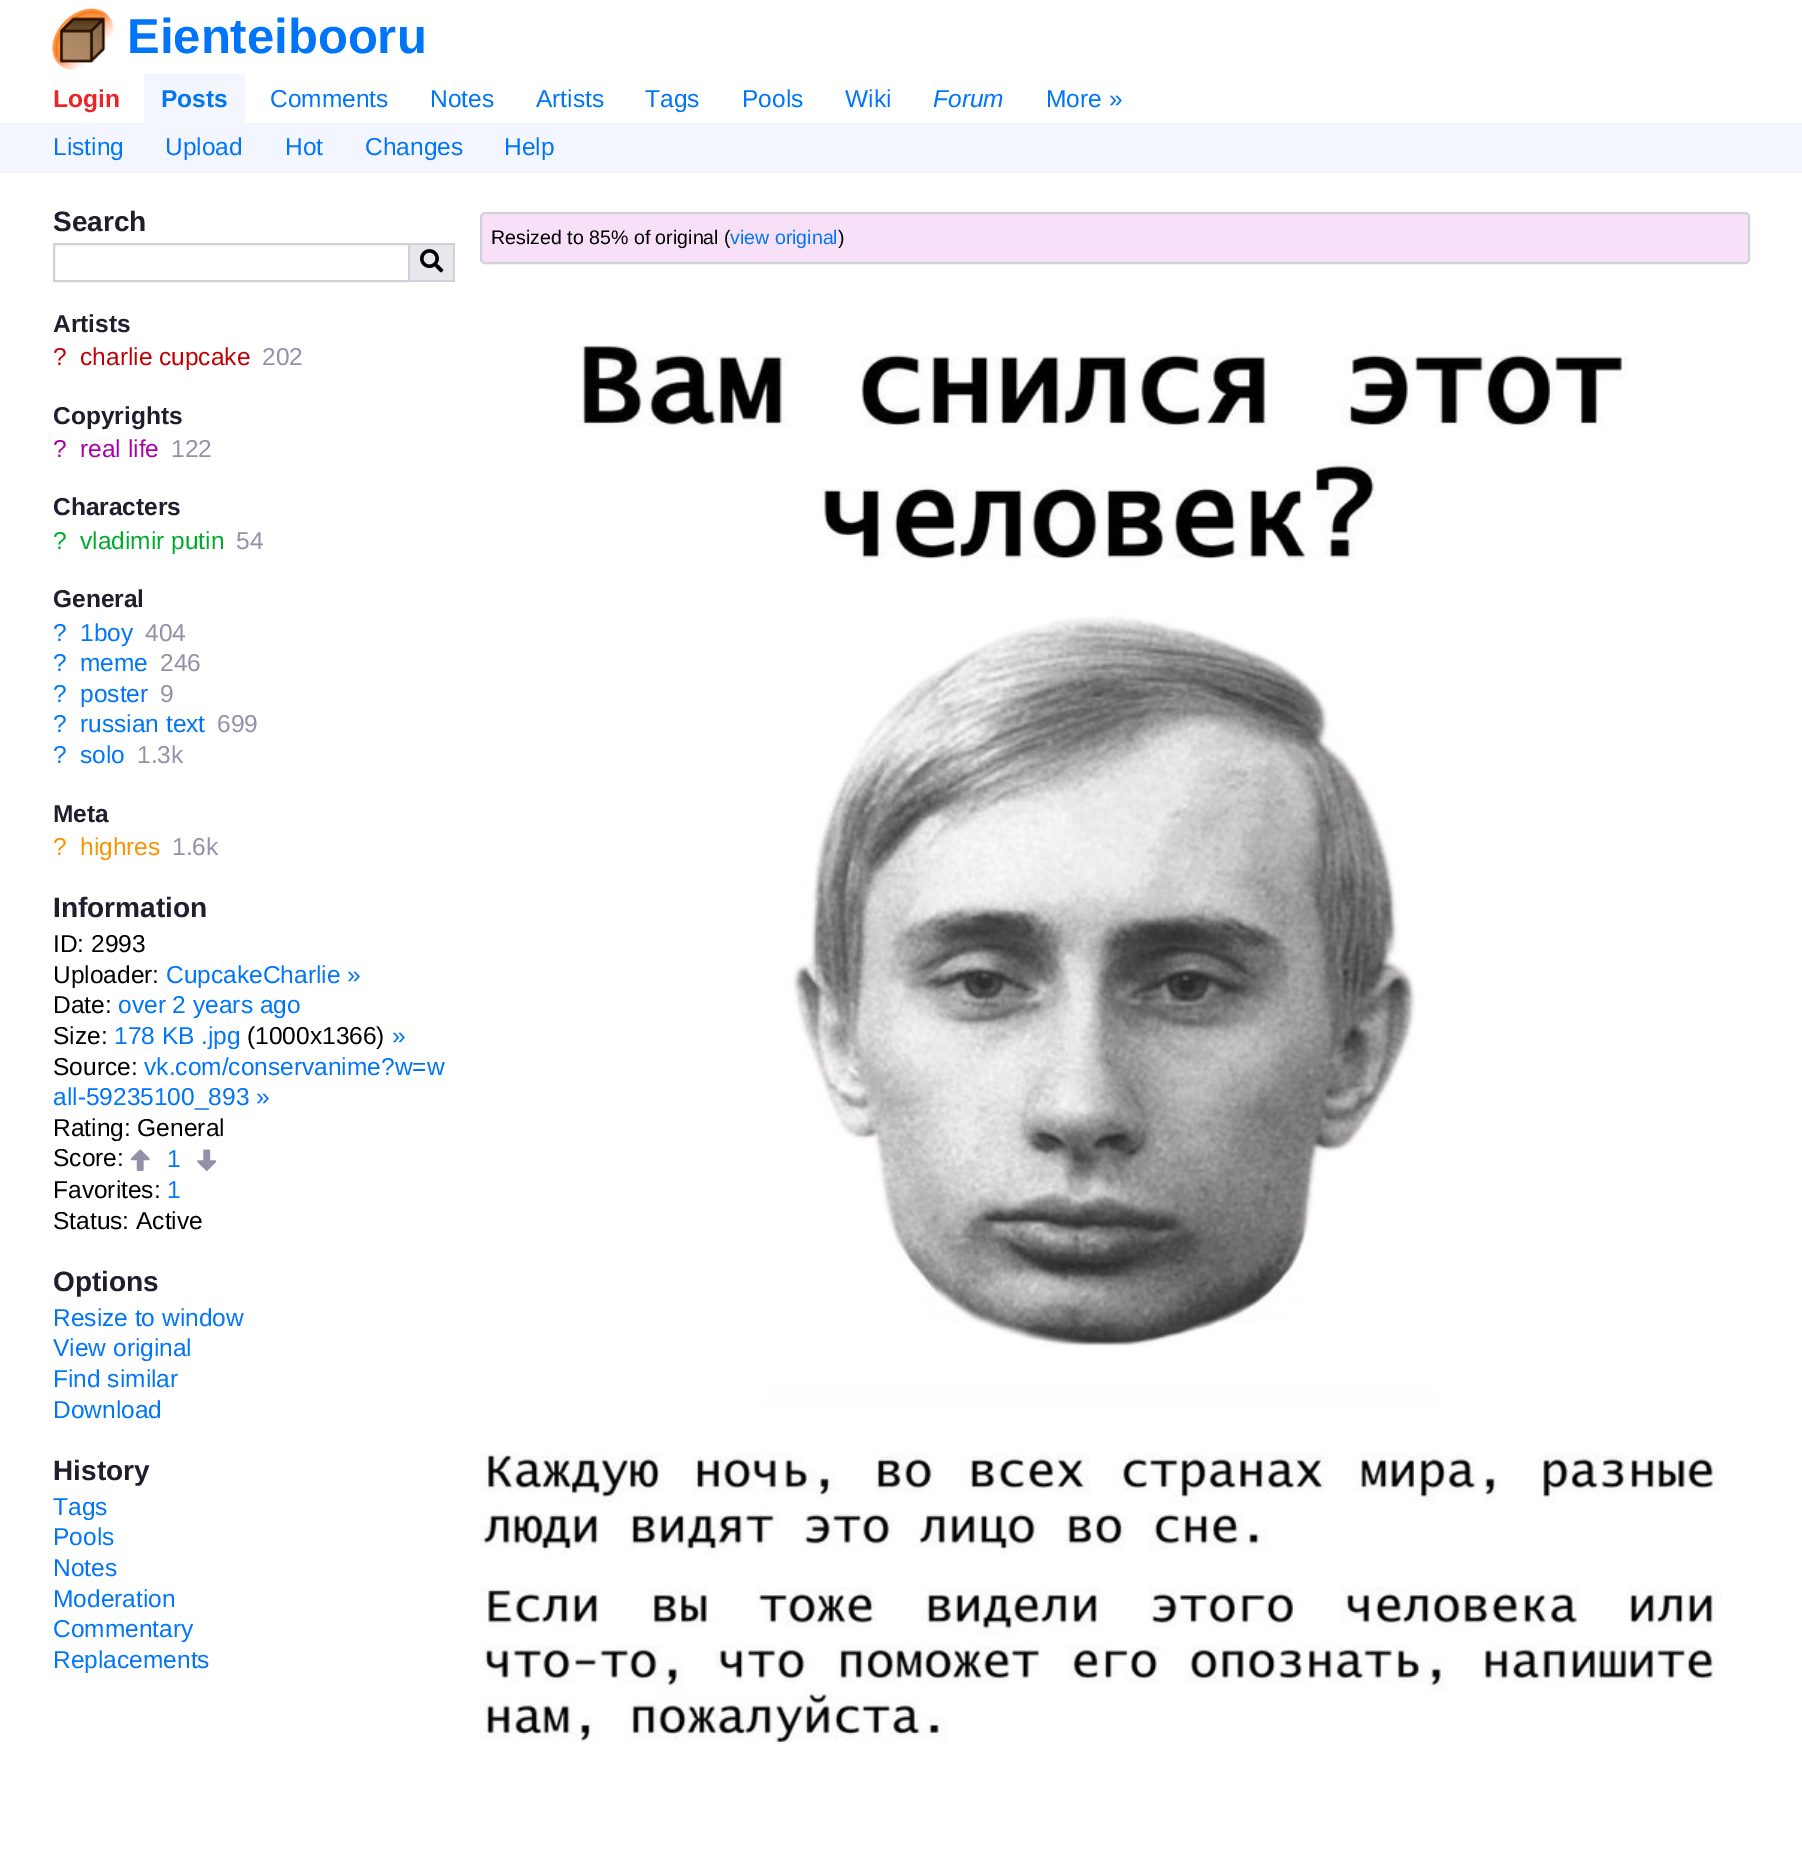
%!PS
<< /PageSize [1802 1868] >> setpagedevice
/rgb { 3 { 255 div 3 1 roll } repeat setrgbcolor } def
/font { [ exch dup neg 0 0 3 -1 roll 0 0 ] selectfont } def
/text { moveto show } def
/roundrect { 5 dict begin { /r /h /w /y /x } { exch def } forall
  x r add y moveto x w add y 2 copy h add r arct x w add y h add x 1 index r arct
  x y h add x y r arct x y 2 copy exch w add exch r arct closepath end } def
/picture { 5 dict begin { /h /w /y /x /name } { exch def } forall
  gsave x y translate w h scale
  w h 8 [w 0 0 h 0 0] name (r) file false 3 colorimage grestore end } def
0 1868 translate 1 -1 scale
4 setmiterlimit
255 255 255 rgb
0 0 1802 1868 rectfill
(img_01.rgb) 52 8 62 62 picture
244 246 255 rgb
144 74 101 49 rectfill
0 123 1802 50 rectfill
209 209 218 rgb
2 setlinewidth
54 244 355 37 rectstroke
232 232 236 rgb
410 245 43 35 rectfill
209 209 218 rgb
410 243 45 2 rectfill
453 243 2 39 rectfill
410 280 45 2 rectfill
(img_02.rgb) 420 249 24 24 picture
(img_03.rgb) 130 1149 20 22 picture
(img_04.rgb) 197 1149 20 22 picture
248 225 248 rgb
481 213 1268 50 4 roundrect gsave fill grestore
209 209 218 rgb
stroke
(img_05.rgb) 479 344 1244 1400 picture
/LiberationSans-Bold 49 font
0 117 248 rgb
(Eienteibooru) 127 53 text
/LiberationSans-Bold 24.5 font
237 36 38 rgb
(Login) 53 107 text
0 117 248 rgb
(Posts) 161 107 text
/LiberationSans-Regular 24.5 font
(Comments) 270 107 text
(Notes) 430 107 text
(Artists) 536 107 text
(Tags) 645 107 text
(Pools) 742 107 text
(Wiki) 845 107 text
/LiberationSans-Italic 24.5 font
(Forum) 933 107 text
/LiberationSans-Regular 24.5 font
(More ») 1046 107 text
(Listing) 53 155 text
(Upload) 165 155 text
(Hot) 285 155 text
(Changes) 365 155 text
(Help) 504 155 text
/LiberationSans-Bold 28 font
30 30 44 rgb
(Search) 53 231 text
/LiberationSans-Bold 24.5 font
(Artists) 53 332 text
/LiberationSans-Regular 24.5 font
192 0 4 rgb
(?) 53 365 text
(charlie cupcake) 80 365 text
145 146 167 rgb
(202) 262 365 text
/LiberationSans-Bold 24.5 font
30 30 44 rgb
(Copyrights) 53 424 text
/LiberationSans-Regular 24.5 font
168 0 170 rgb
(?) 53 457 text
(real life) 80 457 text
145 146 167 rgb
(122) 171 457 text
/LiberationSans-Bold 24.5 font
30 30 44 rgb
(Characters) 53 515 text
/LiberationSans-Regular 24.5 font
0 171 44 rgb
(?) 53 549 text
(vladimir putin) 80 549 text
145 146 167 rgb
(54) 236 549 text
/LiberationSans-Bold 24.5 font
30 30 44 rgb
(General) 53 607 text
/LiberationSans-Regular 24.5 font
0 117 248 rgb
(?) 53 641 text
(1boy) 80 641 text
145 146 167 rgb
(404) 145 641 text
0 117 248 rgb
(?) 53 671 text
(meme) 80 671 text
145 146 167 rgb
(246) 160 671 text
0 117 248 rgb
(?) 53 702 text
(poster) 80 702 text
145 146 167 rgb
(9) 160 702 text
0 117 248 rgb
(?) 53 732 text
(russian text) 80 732 text
145 146 167 rgb
(699) 217 732 text
0 117 248 rgb
(?) 53 763 text
(solo) 80 763 text
145 146 167 rgb
(1.3k) 137 763 text
/LiberationSans-Bold 24.5 font
30 30 44 rgb
(Meta) 53 822 text
/LiberationSans-Regular 24.5 font
253 146 0 rgb
(?) 53 855 text
(highres) 80 855 text
145 146 167 rgb
(1.6k) 172 855 text
/LiberationSans-Bold 28 font
30 30 44 rgb
(Information) 53 917 text
/LiberationSans-Regular 24.5 font
0 0 0 rgb
(ID: 2993) 53 952 text
(Uploader:) 53 983 text
0 117 248 rgb
(CupcakeCharlie ») 166 983 text
0 0 0 rgb
(Date:) 53 1013 text
0 117 248 rgb
(over 2 years ago) 118 1013 text
0 0 0 rgb
(Size:) 53 1044 text
0 117 248 rgb
(178 KB .jpg) 114 1044 text
0 0 0 rgb
(\(1000x1366\)) 247 1044 text
0 117 248 rgb
(») 392 1044 text
0 0 0 rgb
(Source:) 53 1075 text
0 117 248 rgb
(vk.com/conservanime?w=w) 144 1075 text
(all-59235100_893 ») 53 1105 text
0 0 0 rgb
(Rating: General) 53 1136 text
(Score:) 53 1166 text
0 117 248 rgb
(1) 167 1167 text
0 0 0 rgb
(Favorites:) 53 1198 text
0 117 248 rgb
(1) 167 1198 text
0 0 0 rgb
(Status: Active) 53 1229 text
/LiberationSans-Bold 28 font
30 30 44 rgb
(Options) 53 1291 text
/LiberationSans-Regular 24.5 font
0 117 248 rgb
(Resize to window) 53 1326 text
(View original) 53 1356 text
(Find similar) 53 1387 text
(Download) 53 1418 text
/LiberationSans-Bold 28 font
30 30 44 rgb
(History) 53 1480 text
/LiberationSans-Regular 24.5 font
0 117 248 rgb
(Tags) 53 1515 text
(Pools) 53 1545 text
(Notes) 53 1576 text
(Moderation) 53 1607 text
(Commentary) 53 1637 text
(Replacements) 53 1668 text
/LiberationSans-Regular 19.6 font
0 0 0 rgb
(Resized to 85% of original \() 491 244 text
0 117 248 rgb
(view original) 730 244 text
0 0 0 rgb
(\)) 838 244 text
showpage
